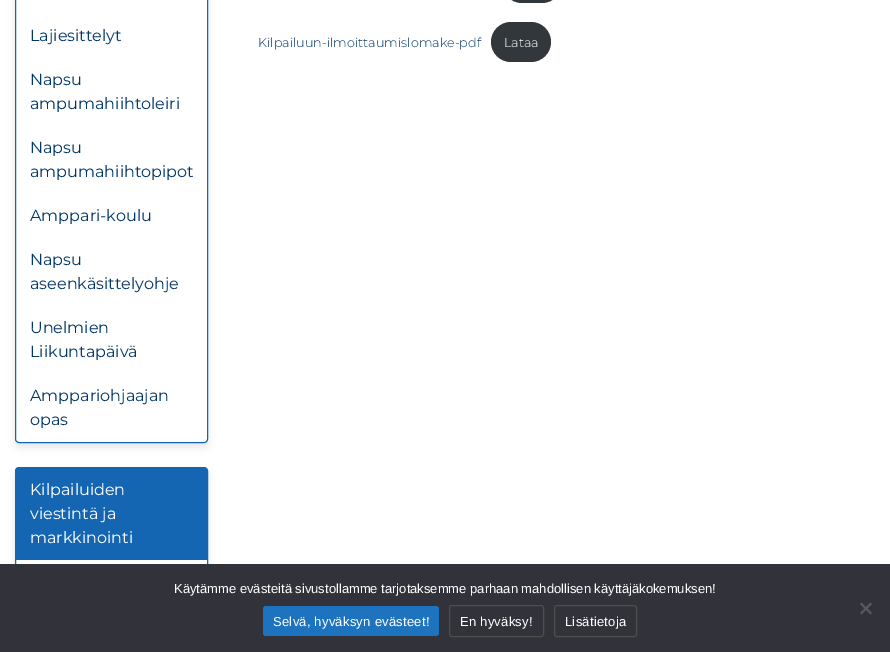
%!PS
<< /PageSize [890 652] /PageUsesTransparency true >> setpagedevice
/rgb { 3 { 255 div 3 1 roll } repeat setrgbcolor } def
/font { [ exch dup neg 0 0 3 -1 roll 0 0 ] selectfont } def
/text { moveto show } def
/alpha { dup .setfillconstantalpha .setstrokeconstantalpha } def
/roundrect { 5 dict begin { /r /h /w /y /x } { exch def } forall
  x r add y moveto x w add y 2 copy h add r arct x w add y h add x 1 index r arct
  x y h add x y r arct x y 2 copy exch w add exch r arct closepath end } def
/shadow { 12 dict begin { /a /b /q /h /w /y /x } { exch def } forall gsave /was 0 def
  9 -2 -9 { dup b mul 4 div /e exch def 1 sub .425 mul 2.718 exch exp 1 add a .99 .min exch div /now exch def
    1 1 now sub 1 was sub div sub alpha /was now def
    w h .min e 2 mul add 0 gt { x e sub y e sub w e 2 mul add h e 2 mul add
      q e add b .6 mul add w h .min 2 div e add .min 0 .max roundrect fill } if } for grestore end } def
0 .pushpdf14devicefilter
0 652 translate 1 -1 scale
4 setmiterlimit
255 255 255 rgb
0 0 890 652 rectfill
gsave
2 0 moveto 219 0 rlineto 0 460 rlineto -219 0 rlineto closepath 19 -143 moveto 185 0 rlineto 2 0 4 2 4 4 rcurveto 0 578 rlineto 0 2 -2 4 -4 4 rcurveto -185 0 rlineto -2 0 -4 -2 -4 -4 rcurveto 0 -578 rlineto 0 -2 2 -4 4 -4 rcurveto closepath eoclip newpath
0 0 0 rgb
15 -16 193 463 4 4 0.1 shadow
grestore
21 102 178 rgb
15.5 -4.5 192 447 3.5 roundrect stroke
gsave
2 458 moveto 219 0 rlineto 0 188 rlineto -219 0 rlineto closepath 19 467 moveto 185 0 rlineto 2 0 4 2 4 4 rcurveto 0 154 rlineto 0 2 -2 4 -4 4 rcurveto -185 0 rlineto -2 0 -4 -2 -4 -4 rcurveto 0 -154 rlineto 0 -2 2 -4 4 -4 rcurveto closepath eoclip newpath
0 0 0 rgb
15 471 193 162 4 4 0.1 shadow
grestore
15.5 467.5 192 161 3.5 roundrect stroke
16 468 191 92 rectfill
50 55 60 rgb
502 -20 60 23 20 roundrect fill
491 22 60 40 20 roundrect fill
50 50 58 rgb
0 564 890 88 rectfill
89 89 93 rgb
870.5 602.5 moveto 1.5 1.5 rlineto -10.5 10.5 rlineto -1.5 -1.5 rlineto closepath fill
860 604 moveto 1.5 -1.5 rlineto 10.5 10.5 rlineto -1.5 1.5 rlineto closepath fill
30 115 190 rgb
263 606 176 30 3 roundrect fill
78 78 78 rgb
449.5 605.5 94 31 2.5 roundrect stroke
554.5 605.5 82 31 2.5 roundrect stroke
/Montserrat-Regular 16 font
1 54 104 rgb
(Lajiesittelyt) 30 41 text
(Napsu) 30 85 text
(ampumahiihtoleiri) 30 109 text
(Napsu) 30 153 text
(ampumahiihtopipot) 30 177 text
(Amppari-koulu) 30 221 text
(Napsu) 30 265 text
(aseenkäsittelyohje) 30 289 text
(Unelmien) 30 333 text
(Liikuntapäivä) 30 357 text
(Amppariohjaajan) 30 401 text
(opas) 30 425 text
255 255 255 rgb
(Kilpailuiden) 30 495 text
(viestintä ja) 30 519 text
(markkinointi) 30 543 text
/Montserrat-Light 12.75 font
1 54 104 rgb
(Kilpailuun-ilmoittaumislomake-pdf) 258 47 text
255 255 255 rgb
(Lataa) 504 47 text
/LiberationSans-Regular 13 font
(Käytämme evästeitä sivustollamme tarjotaksemme parhaan mahdollisen käyttäjäkokemuksen!) 174 593 text
273 626 moveto 0.25 0 (Selvä, hyväksyn evästeet!) ashow
460 626 moveto 0.25 0 (En hyväksy!) ashow
565 626 moveto 0.25 0 (Lisätietoja) ashow
.poppdf14devicefilter showpage
